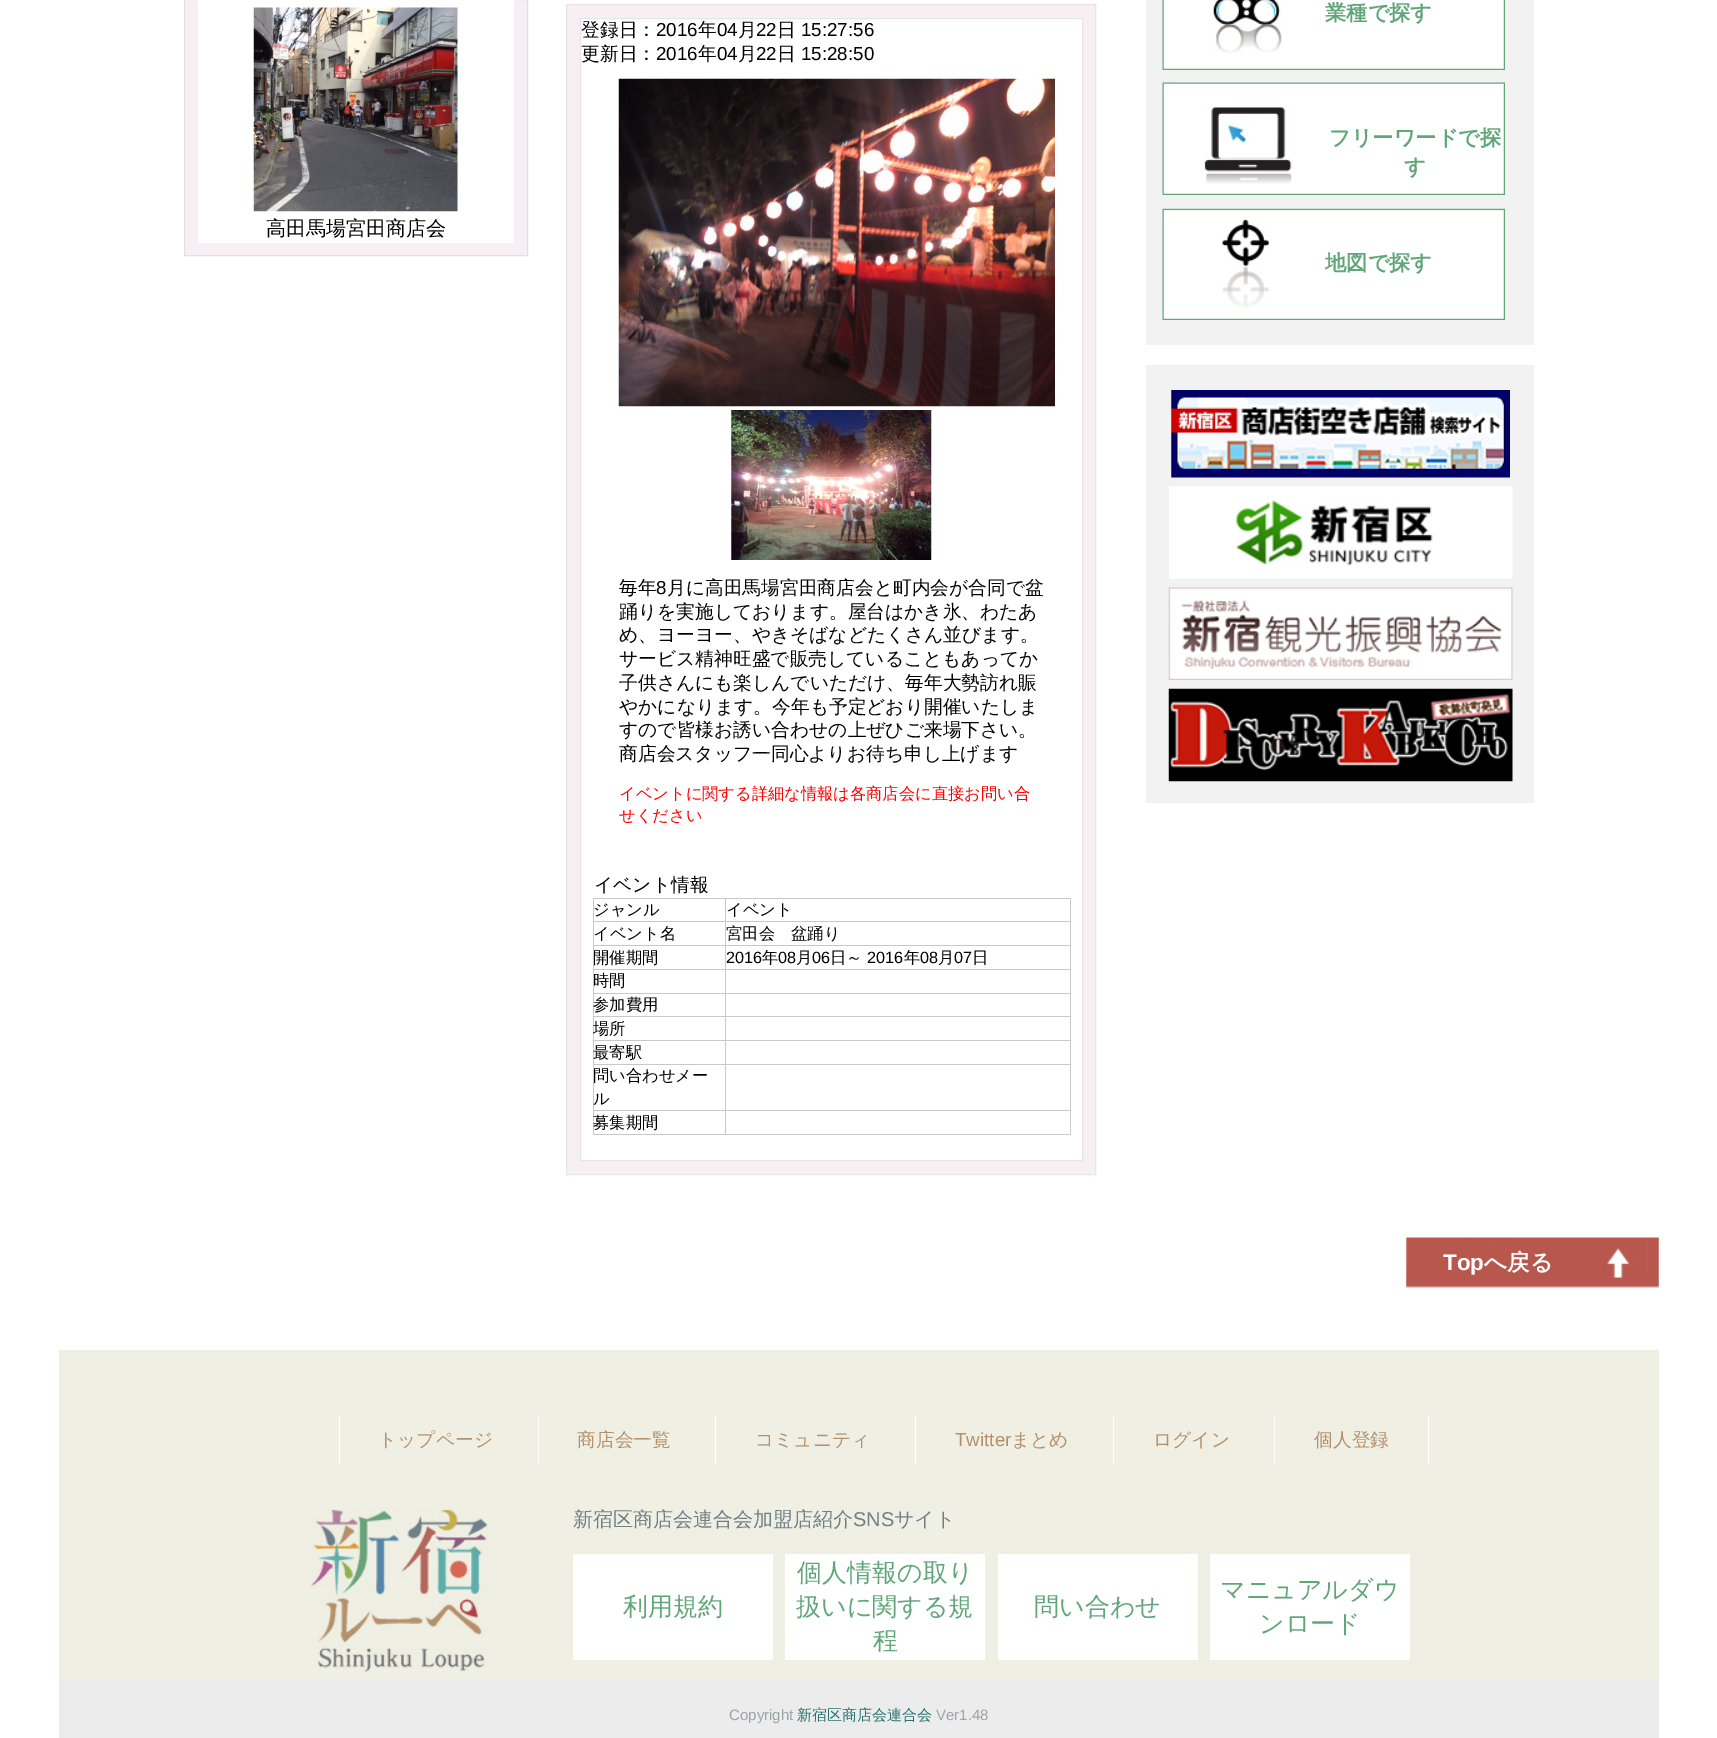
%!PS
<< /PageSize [1717 1738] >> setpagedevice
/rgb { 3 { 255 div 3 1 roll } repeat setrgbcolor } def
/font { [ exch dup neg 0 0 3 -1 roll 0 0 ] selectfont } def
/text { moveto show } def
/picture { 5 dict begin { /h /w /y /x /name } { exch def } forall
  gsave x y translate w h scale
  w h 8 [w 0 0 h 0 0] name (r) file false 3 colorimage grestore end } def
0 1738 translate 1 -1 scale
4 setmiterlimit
255 255 255 rgb
0 0 1717 1738 rectfill
247 239 243 rgb
184.5 -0.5 moveto 343 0 rlineto 0 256 rlineto -343 0 rlineto closepath gsave fill grestore
225 225 225 rgb
stroke
255 255 255 rgb
198 0 316 243 rectfill
(img_01.rgb) 253 7 205 205 picture
247 239 243 rgb
566.5 4.5 moveto 529 0 rlineto 0 1170 rlineto -529 0 rlineto closepath gsave fill grestore
231 229 230 rgb
stroke
255 255 255 rgb
580.5 18.5 moveto 502 0 rlineto 0 1142 rlineto -502 0 rlineto closepath gsave fill grestore
231 229 230 rgb
stroke
(img_02.rgb) 618 78 437 329 picture
(img_03.rgb) 731 410 201 150 picture
204 204 204 rgb
1070 1111 1 24 rectfill
726 1134 345 1 rectfill
200 200 200 rgb
725 898 346 1 rectfill
725 921 346 1 rectfill
725 945 346 1 rectfill
725 969 346 1 rectfill
725 993 346 1 rectfill
725 1016 346 1 rectfill
725 1040 346 1 rectfill
725 1064 346 1 rectfill
1070 1064 1 47 rectfill
593 1110 133 1 rectfill
725 1110 1 25 rectfill
725 1110 346 1 rectfill
725 1064 1 47 rectfill
593 1064 133 1 rectfill
725 1040 1 25 rectfill
593 1040 133 1 rectfill
725 1016 1 25 rectfill
593 1016 133 1 rectfill
725 993 1 25 rectfill
593 993 133 1 rectfill
725 969 1 25 rectfill
593 969 133 1 rectfill
725 945 1 25 rectfill
593 945 133 1 rectfill
725 921 1 25 rectfill
593 921 133 1 rectfill
725 898 1 25 rectfill
593 898 133 1 rectfill
593 1134 133 1 rectfill
593 1110 1 25 rectfill
593 1064 1 47 rectfill
593 1040 1 25 rectfill
593 1016 1 25 rectfill
593 993 1 25 rectfill
593 969 1 25 rectfill
593 945 1 25 rectfill
593 921 1 25 rectfill
593 898 1 25 rectfill
1070 1040 1 25 rectfill
1070 1016 1 25 rectfill
1070 993 1 25 rectfill
1070 969 1 25 rectfill
1070 945 1 25 rectfill
1070 921 1 25 rectfill
1070 898 1 25 rectfill
241 242 241 rgb
1146 0 388 345 rectfill
(img_04.rgb) 1162 0 343 70 picture
(img_05.rgb) 1162 82 343 113 picture
(img_06.rgb) 1162 208 343 112 picture
1146 365 388 438 rectfill
(img_07.rgb) 1171 390 339 88 picture
(img_08.rgb) 1169 486 344 93 picture
(img_09.rgb) 1168 587 345 93 picture
(img_10.rgb) 1168 688 345 94 picture
(img_11.rgb) 1406 1237 253 51 picture
239 239 227 rgb
59 1350 1600 330 rectfill
255 255 255 rgb
339 1416 1 49 rectfill
538 1416 1 49 rectfill
715 1416 1 49 rectfill
915 1416 1 49 rectfill
1113 1416 1 49 rectfill
1428 1416 1 49 rectfill
1274 1416 1 49 rectfill
(img_12.rgb) 311 1509 177 164 picture
573 1554 200 106 rectfill
785 1554 200 106 rectfill
998 1554 200 106 rectfill
1210 1554 200 106 rectfill
236 236 236 rgb
59 1680 1600 58 rectfill
/WenQuanYiZenHei-Medium 20 font
0 0 0 rgb
(高田馬場宮田商店会) 266 235 text
/WenQuanYiZenHei-Medium 18.75 font
(登録日：) 581 36 text
/LiberationSans-Regular 18.75 font
(2016) 656 36 text
/WenQuanYiZenHei-Medium 18.75 font
(年) 698 36 text
/LiberationSans-Regular 18.75 font
(04) 717 36 text
/WenQuanYiZenHei-Medium 18.75 font
(月) 738 36 text
/LiberationSans-Regular 18.75 font
(22) 756 36 text
/WenQuanYiZenHei-Medium 18.75 font
(日) 777 36 text
/LiberationSans-Regular 18.75 font
(15:27:56) 801 36 text
/WenQuanYiZenHei-Medium 18.75 font
(更新日：) 581 60 text
/LiberationSans-Regular 18.75 font
(2016) 656 60 text
/WenQuanYiZenHei-Medium 18.75 font
(年) 698 60 text
/LiberationSans-Regular 18.75 font
(04) 717 60 text
/WenQuanYiZenHei-Medium 18.75 font
(月) 738 60 text
/LiberationSans-Regular 18.75 font
(22) 756 60 text
/WenQuanYiZenHei-Medium 18.75 font
(日) 777 60 text
/LiberationSans-Regular 18.75 font
(15:28:50) 801 60 text
/WenQuanYiZenHei-Medium 18.75 font
(毎年) 619 594 text
/LiberationSans-Regular 18.75 font
(8) 656 594 text
/WenQuanYiZenHei-Medium 18.75 font
(月に高田馬場宮田商店会と町内会が合同で盆) 667 594 text
(踊りを実施しております。屋台はかき氷、わたあ) 619 618 text
(め、ヨーヨー、やきそばなどたくさん並びます。) 619 641 text
(サービス精神旺盛で販売していることもあってか) 619 665 text
(子供さんにも楽しんでいただけ、毎年大勢訪れ賑) 619 689 text
(やかになります。今年も予定どおり開催いたしま) 619 713 text
(すので皆様お誘い合わせの上ぜひご来場下さい。) 619 736 text
(商店会スタッフ一同心よりお待ち申し上げます) 619 760 text
/WenQuanYiZenHei-Medium 16.25 font
255 0 0 rgb
(イベントに関する詳細な情報は各商店会に直接お問い合) 619 799 text
(せください) 619 821 text
/WenQuanYiZenHei-Medium 18.75 font
0 0 0 rgb
(イベント情報) 594 891 text
/WenQuanYiZenHei-Medium 16.25 font
(ジャンル) 593 915 text
(イベント) 726 915 text
(イベント名) 593 939 text
(宮田会　盆踊り) 726 939 text
(開催期間) 593 963 text
/LiberationSans-Regular 16.25 font
(2016) 726 963 text
/WenQuanYiZenHei-Medium 16.25 font
(年) 762 963 text
/LiberationSans-Regular 16.25 font
(08) 778 963 text
/WenQuanYiZenHei-Medium 16.25 font
(月) 796 963 text
/LiberationSans-Regular 16.25 font
(06) 812 963 text
/WenQuanYiZenHei-Medium 16.25 font
(日～) 830 963 text
/LiberationSans-Regular 16.25 font
(2016) 867 963 text
/WenQuanYiZenHei-Medium 16.25 font
(年) 904 963 text
/LiberationSans-Regular 16.25 font
(08) 920 963 text
/WenQuanYiZenHei-Medium 16.25 font
(月) 938 963 text
/LiberationSans-Regular 16.25 font
(07) 954 963 text
/WenQuanYiZenHei-Medium 16.25 font
(日) 972 963 text
(時間) 593 986 text
(参加費用) 593 1010 text
(場所) 593 1034 text
(最寄駅) 593 1058 text
(問い合わせメー) 593 1081 text
(ル) 593 1104 text
(募集期間) 593 1128 text
/WenQuanYiZenHei-Bold 21.25 font
97 166 121 rgb
(業種で探す) 1325 20 text
(フリーワードで探) 1329 145 text
(す) 1404 174 text
(地図で探す) 1325 270 text
/LiberationSans-Bold 22.5 font
255 255 255 rgb
(Top) 1443 1270 text
/WenQuanYiZenHei-Bold 22.5 font
(へ戻る) 1484 1270 text
/WenQuanYiZenHei-Medium 18.75 font
181 145 107 rgb
(トップページ) 378 1446 text
(商店会一覧) 577 1446 text
(コミュニティ) 755 1446 text
/LiberationSans-Regular 18.75 font
(Twitter) 955 1446 text
/WenQuanYiZenHei-Medium 18.75 font
(まとめ) 1011 1446 text
(ログイン) 1153 1446 text
(個人登録) 1314 1446 text
/WenQuanYiZenHei-Medium 20 font
111 128 135 rgb
(新宿区商店会連合会加盟店紹介) 573 1526 text
/LiberationSans-Regular 20 font
(SNS) 853 1526 text
/WenQuanYiZenHei-Medium 20 font
(サイト) 894 1526 text
/WenQuanYiZenHei-Medium 25 font
97 166 121 rgb
(利用規約) 623 1615 text
(個人情報の取り) 797 1581 text
(扱いに関する規) 796 1615 text
(程) 873 1649 text
(問い合わせ) 1034 1615 text
(マニュアルダウ) 1220 1598 text
(ンロード) 1259 1632 text
/LiberationSans-Regular 15 font
155 165 165 rgb
(Copyright) 729 1720 text
/WenQuanYiZenHei-Medium 15 font
38 114 112 rgb
(新宿区商店会連合会) 797 1720 text
/LiberationSans-Regular 15 font
155 165 165 rgb
(Ver1.48) 936 1720 text
showpage
